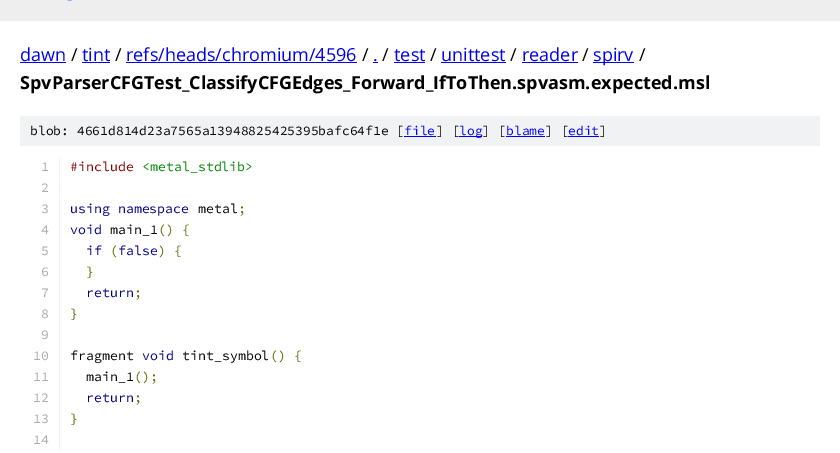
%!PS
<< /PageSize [840 453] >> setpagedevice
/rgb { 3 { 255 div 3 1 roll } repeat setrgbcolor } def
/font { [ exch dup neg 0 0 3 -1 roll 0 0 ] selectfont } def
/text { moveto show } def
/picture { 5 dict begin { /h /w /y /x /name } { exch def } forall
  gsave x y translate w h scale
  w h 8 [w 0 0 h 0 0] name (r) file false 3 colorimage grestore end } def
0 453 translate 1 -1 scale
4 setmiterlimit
255 255 255 rgb
0 0 840 453 rectfill
238 238 238 rgb
0 0 840 21 rectfill
(img_01.rgb) 67 0 6 1 picture
0 0 238 rgb
20 62 46 1 rectfill
82 62 28 1 rectfill
126 62 231 1 rectfill
373 62 5 1 rectfill
394 62 31 1 rectfill
441 62 65 1 rectfill
522 62 56 1 rectfill
593 62 41 1 rectfill
241 242 243 rgb
20 116 800 30 rectfill
0 0 238 rgb
404 136 32 1 rectfill
459 136 23 1 rectfill
506 136 39 1 rectfill
568 136 31 1 rectfill
241 242 243 rgb
59 157 1 20 rectfill
59 178 1 20 rectfill
59 199 1 252 rectfill
/OpenSans-Regular 18 font
0 0 238 rgb
(dawn) 20 61 text
0 0 0 rgb
(/) 71 61 text
0 0 238 rgb
(tint) 82 61 text
0 0 0 rgb
(/) 115 61 text
0 0 238 rgb
(refs/heads/chromium/4596) 126 61 text
0 0 0 rgb
(/) 362 61 text
0 0 238 rgb
(.) 373 61 text
0 0 0 rgb
(/) 382 61 text
0 0 238 rgb
(test) 394 61 text
0 0 0 rgb
(/) 430 61 text
0 0 238 rgb
(unittest) 441 61 text
0 0 0 rgb
(/) 510 61 text
0 0 238 rgb
(reader) 522 61 text
0 0 0 rgb
(/) 582 61 text
0 0 238 rgb
(spirv) 593 61 text
0 0 0 rgb
(/) 639 61 text
/OpenSans-Bold 18 font
(SpvParserCFGTest_ClassifyCFGEdges_Forward_IfToThen.spvasm.expected.msl) 20 89 text
/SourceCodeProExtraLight-ExtraLight 13 font
(blob: 4661d814d23a7565a13948825425395bafc64f1e [) 30 135 text
0 0 238 rgb
(file) 404 135 text
0 0 0 rgb
(] [) 436 135 text
0 0 238 rgb
(log) 459 135 text
0 0 0 rgb
(] [) 482 135 text
0 0 238 rgb
(blame) 506 135 text
0 0 0 rgb
(] [) 545 135 text
0 0 238 rgb
(edit) 568 135 text
0 0 0 rgb
(]) 599 135 text
/SourceCodeProExtraLight-ExtraLight 13.25 font
170 170 170 rgb
(1) 41 171 text
136 0 0 rgb
(#include) 70 171 text
0 136 0 rgb
(<metal_stdlib>) 142 171 text
170 170 170 rgb
(2) 41 192 text
(3) 41 213 text
0 0 136 rgb
(using namespace) 70 213 text
0 0 0 rgb
(metal) 198 213 text
102 102 0 rgb
(;) 238 213 text
170 170 170 rgb
(4) 41 234 text
0 0 136 rgb
(void) 70 234 text
0 0 0 rgb
(main_1) 110 234 text
102 102 0 rgb
(\(\) {) 158 234 text
170 170 170 rgb
(5) 41 255 text
0 0 136 rgb
(if) 86 255 text
102 102 0 rgb
(\() 110 255 text
0 0 136 rgb
(false) 118 255 text
102 102 0 rgb
(\) {) 158 255 text
170 170 170 rgb
(6) 41 276 text
102 102 0 rgb
(}) 86 276 text
170 170 170 rgb
(7) 41 297 text
0 0 136 rgb
(return) 86 297 text
102 102 0 rgb
(;) 134 297 text
170 170 170 rgb
(8) 41 318 text
102 102 0 rgb
(}) 70 318 text
170 170 170 rgb
(9) 41 339 text
(10) 33 360 text
0 0 0 rgb
(fragment) 70 360 text
0 0 136 rgb
(void) 142 360 text
0 0 0 rgb
(tint_symbol) 182 360 text
102 102 0 rgb
(\(\) {) 270 360 text
170 170 170 rgb
(11) 33 381 text
0 0 0 rgb
(main_1) 86 381 text
102 102 0 rgb
(\(\);) 134 381 text
170 170 170 rgb
(12) 33 402 text
0 0 136 rgb
(return) 86 402 text
102 102 0 rgb
(;) 134 402 text
170 170 170 rgb
(13) 33 423 text
102 102 0 rgb
(}) 70 423 text
170 170 170 rgb
(14) 33 444 text
showpage
